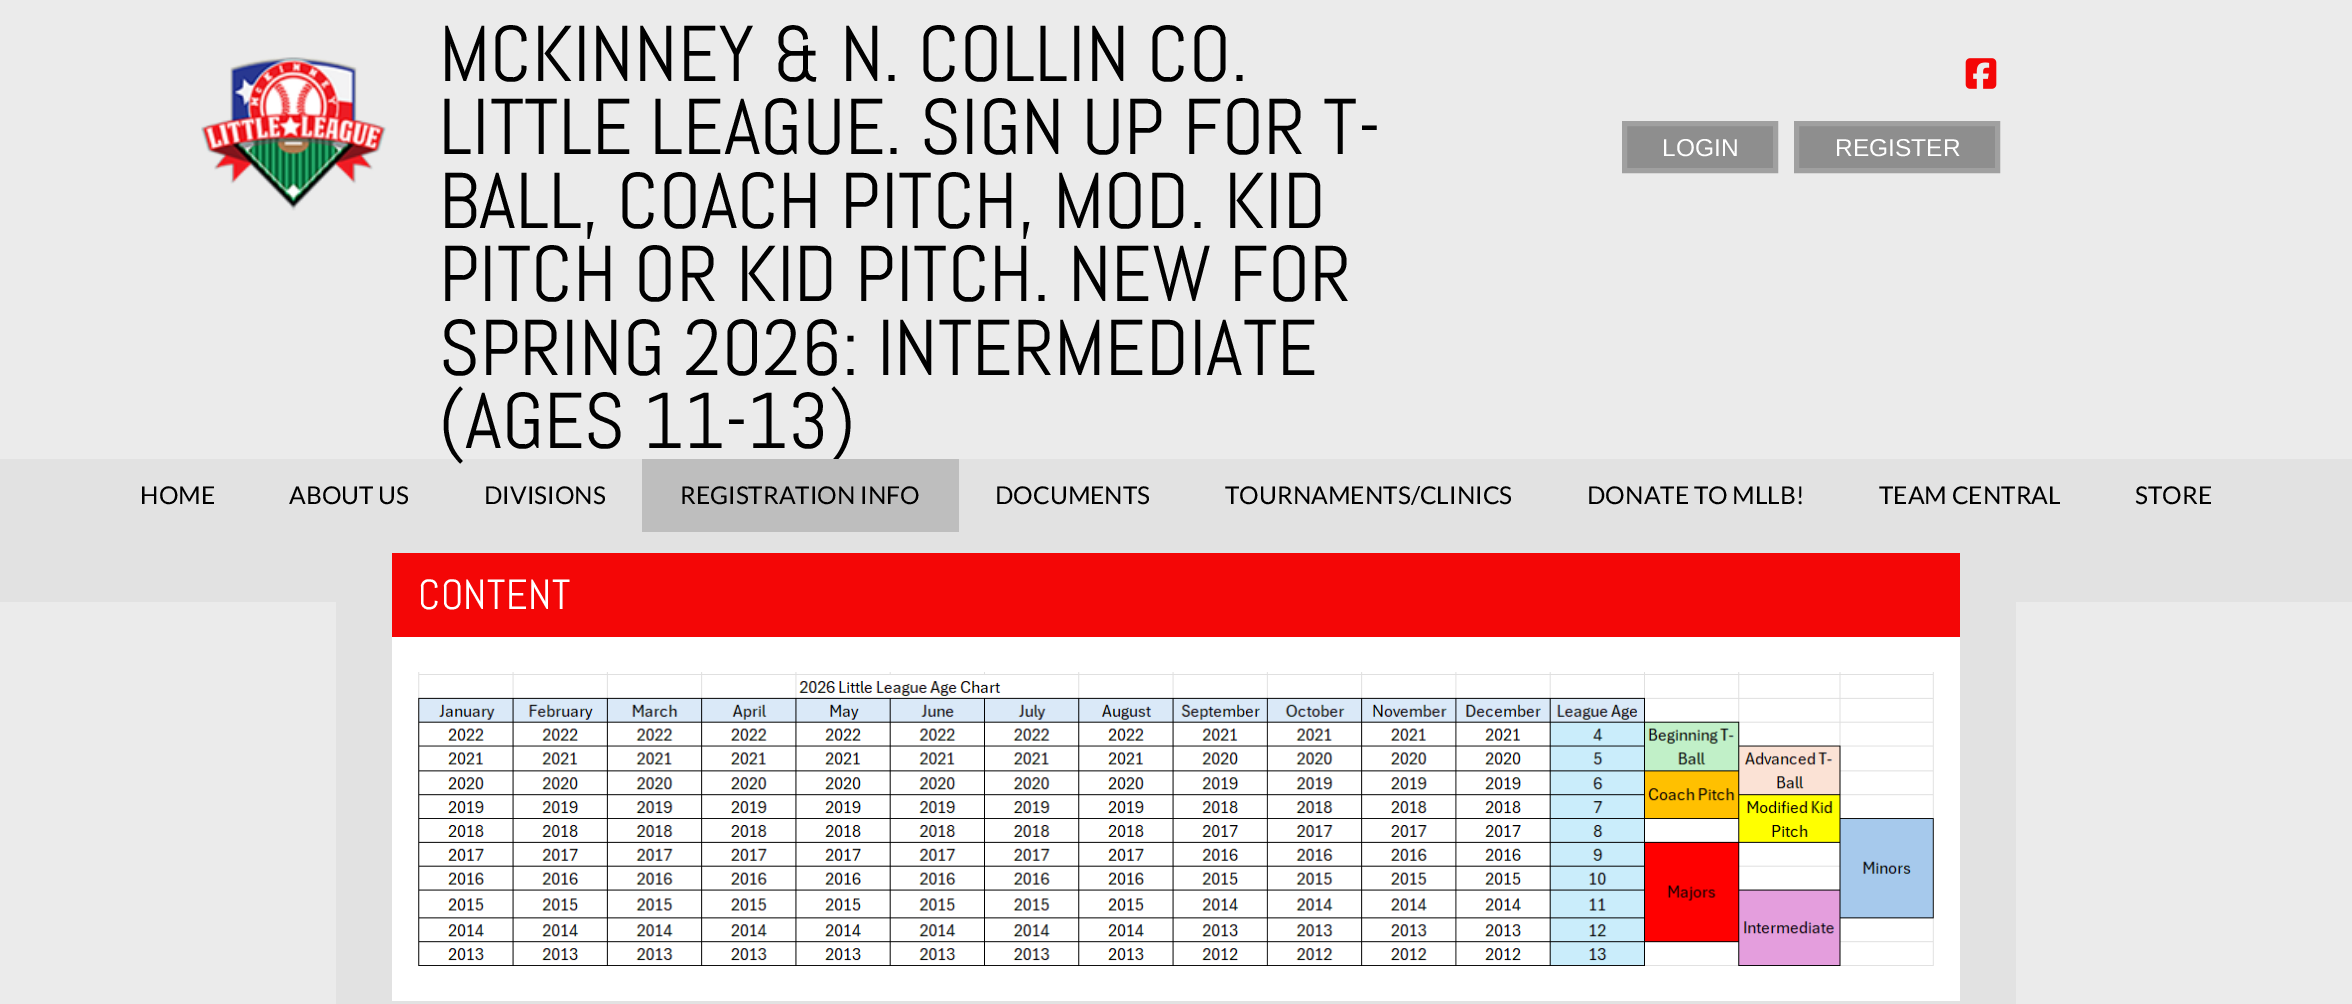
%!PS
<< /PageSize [2352 1004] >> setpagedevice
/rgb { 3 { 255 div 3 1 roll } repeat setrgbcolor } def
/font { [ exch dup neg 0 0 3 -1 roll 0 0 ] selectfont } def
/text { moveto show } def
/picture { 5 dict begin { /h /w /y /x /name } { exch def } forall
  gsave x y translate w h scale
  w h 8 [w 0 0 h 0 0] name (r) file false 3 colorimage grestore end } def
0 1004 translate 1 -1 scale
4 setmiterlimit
235 235 235 rgb
0 0 2352 1004 rectfill
(img_01.rgb) 201 57 186 154 picture
(img_02.rgb) 1965 58 32 31 picture
142 142 142 rgb
1624.5 123.5 moveto 151 0 rlineto 0 47 rlineto -151 0 rlineto closepath gsave fill grestore
160 160 160 rgb
5 setlinewidth
stroke
142 142 142 rgb
1796.5 123.5 moveto 201 0 rlineto 0 47 rlineto -201 0 rlineto closepath gsave fill grestore
160 160 160 rgb
stroke
226 226 226 rgb
0 459 2352 143 rectfill
336 602 1680 402 rectfill
244 6 6 rgb
392 553 1568 84 rectfill
255 255 255 rgb
392 637 1568 364 rectfill
(img_03.rgb) 418 672 1516 294 picture
/Abel-Regular 78.75 font
0 0 0 rgb
(MCKINNEY & N. COLLIN CO.) 439 81 text
(LITTLE LEAGUE. SIGN UP FOR T-) 439 154 text
(BALL, COACH PITCH, MOD. KID) 439 228 text
(PITCH OR KID PITCH. NEW FOR) 439 301 text
(SPRING 2026: INTERMEDIATE) 439 375 text
(\(AGES 11-13\)) 439 448 text
/LiberationSans-Regular 24.5 font
255 255 255 rgb
(LOGIN) 1662 156 text
(REGISTER) 1835 156 text
/Lato-Regular 24.5 font
0 0 0 rgb
(HOME) 140 504 text
(ABOUT US) 289 504 text
(DIVISIONS) 484 504 text
190 190 190 rgb
642 459 317 73 rectfill
0 0 0 rgb
(REGISTRATION INFO) 680 504 text
(DOCUMENTS) 995 504 text
(TOURNAMENTS/CLINICS) 1225 504 text
(DONATE TO MLLB!) 1587 504 text
(TEAM CENTRAL) 1879 504 text
(STORE) 2135 504 text
/Abel-Regular 42 font
255 255 255 rgb
418 609 moveto 0.5 0 (CONTENT) ashow
showpage
